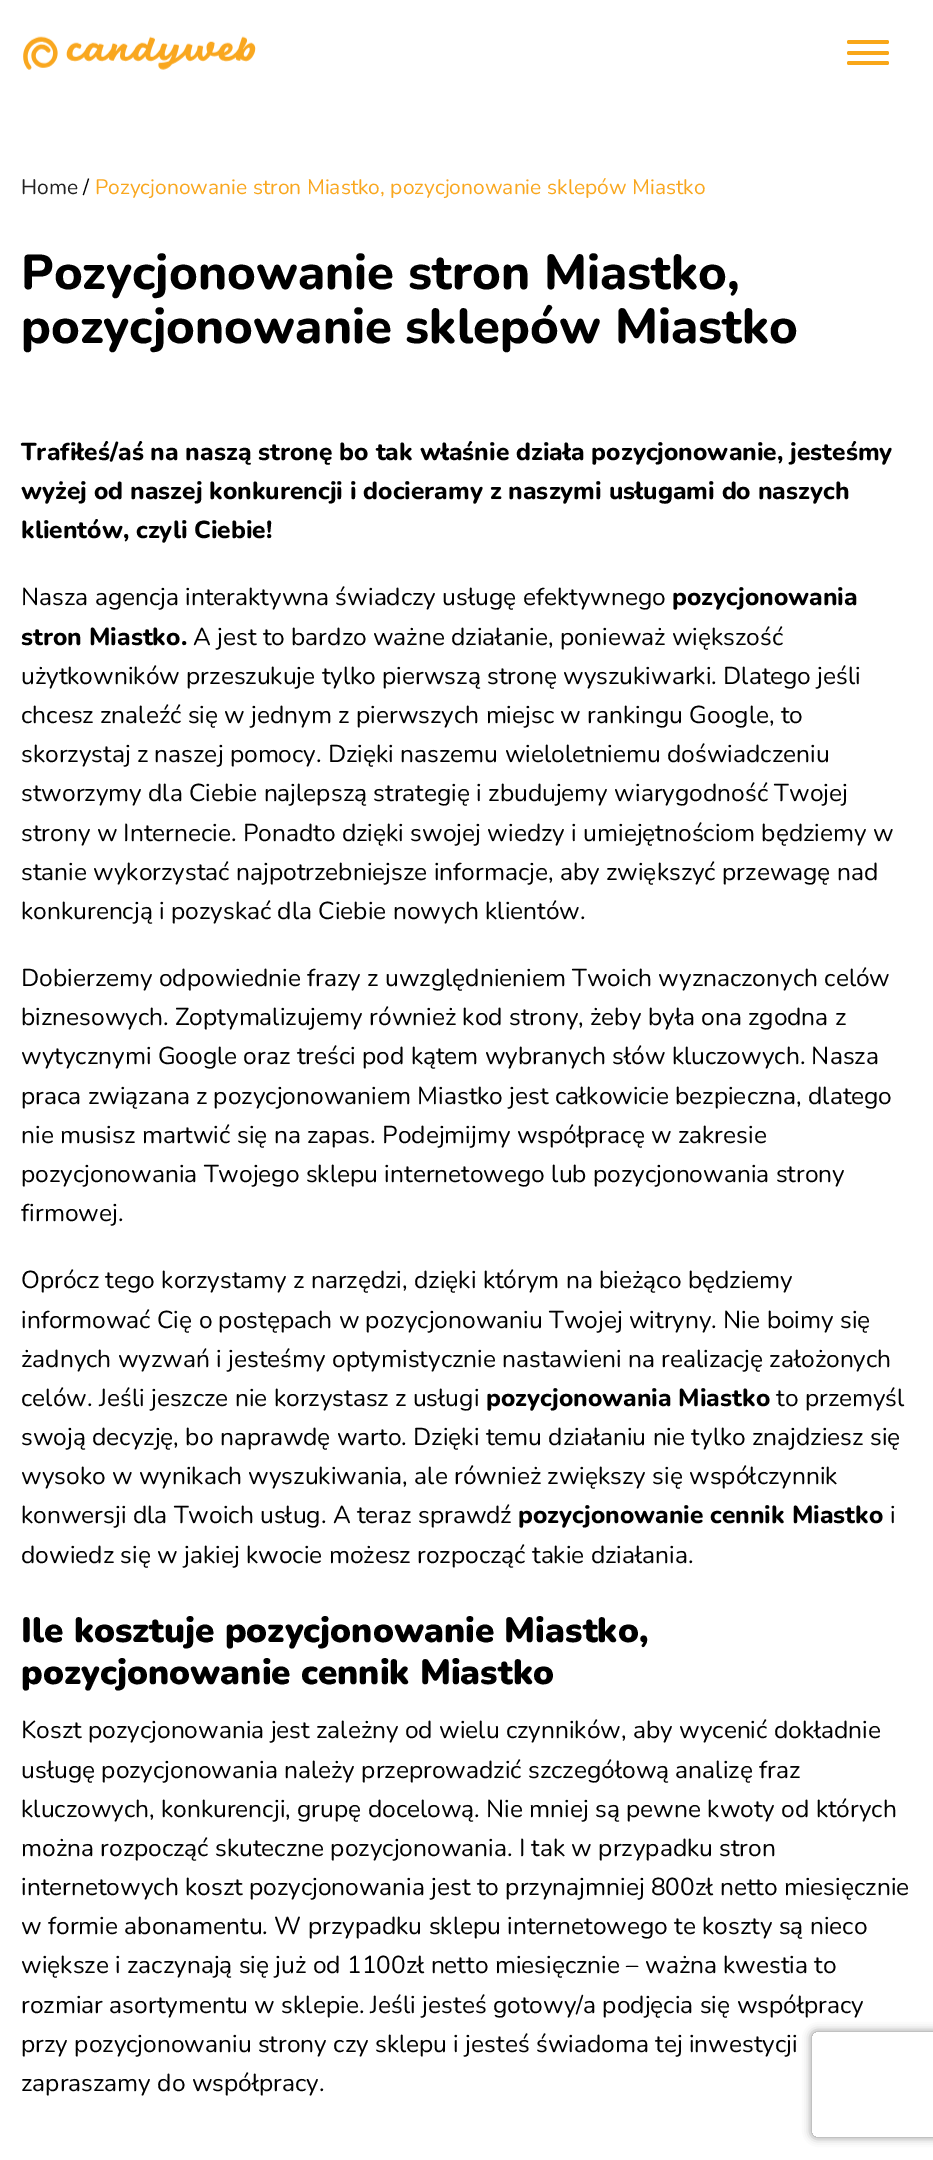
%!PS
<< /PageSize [933 2160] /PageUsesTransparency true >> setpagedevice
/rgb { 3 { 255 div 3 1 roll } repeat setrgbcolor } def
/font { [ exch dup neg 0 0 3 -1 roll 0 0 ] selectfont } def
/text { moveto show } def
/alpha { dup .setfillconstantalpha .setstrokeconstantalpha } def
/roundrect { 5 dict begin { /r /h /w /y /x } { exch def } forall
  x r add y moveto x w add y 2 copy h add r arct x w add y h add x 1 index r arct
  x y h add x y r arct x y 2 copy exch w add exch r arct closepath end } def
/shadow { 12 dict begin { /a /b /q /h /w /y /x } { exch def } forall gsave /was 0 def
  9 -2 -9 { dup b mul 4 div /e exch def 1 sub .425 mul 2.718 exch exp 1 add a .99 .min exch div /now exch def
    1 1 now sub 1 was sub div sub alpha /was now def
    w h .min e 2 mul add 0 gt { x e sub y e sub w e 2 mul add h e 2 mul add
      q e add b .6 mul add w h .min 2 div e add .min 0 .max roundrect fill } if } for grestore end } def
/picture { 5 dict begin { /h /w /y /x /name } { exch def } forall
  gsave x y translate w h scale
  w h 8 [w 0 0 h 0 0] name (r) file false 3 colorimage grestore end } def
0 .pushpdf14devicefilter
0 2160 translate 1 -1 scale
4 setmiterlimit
255 255 255 rgb
0 0 933 2160 rectfill
(img_01.rgb) 23 36 233 34 picture
249 167 25 rgb
847 40 42 4 2 roundrect fill
847 51 42 4 2 roundrect fill
847 61 42 4 2 roundrect fill
gsave
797 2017 moveto 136 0 rlineto 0 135 rlineto -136 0 rlineto closepath 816 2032 moveto 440 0 rlineto 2 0 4 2 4 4 rcurveto 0 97 rlineto 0 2 -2 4 -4 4 rcurveto -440 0 rlineto -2 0 -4 -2 -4 -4 rcurveto 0 -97 rlineto 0 -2 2 -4 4 -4 rcurveto closepath eoclip newpath
128 128 128 rgb
812 2032 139 105 4 4.5 1 shadow
grestore
/Nunito-ExtraLight 21 font
34 34 34 rgb
(Home) 21 194 text
0 0 0 rgb
(/) 83 194 text
249 167 31 rgb
(Pozycjonowanie stron Miastko, pozycjonowanie sklepów Miastko) 95 194 text
/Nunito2-ExtraLight 49 font
0 0 0 rgb
(Pozycjonowanie stron Miastko,) 21 289 text
(pozycjonowanie sklepów Miastko) 21 343 text
/Nunito2-ExtraLight 24.5 font
(Trafiłeś/aś na naszą stronę bo tak właśnie działa pozycjonowanie, jesteśmy) 21 460 text
(wyżej od naszej konkurencji i docieramy z naszymi usługami do naszych) 21 499 text
(klientów, czyli Ciebie!) 21 538 text
/Nunito-ExtraLight 24.5 font
(Nasza agencja interaktywna świadczy usługę efektywnego) 21 605 text
/Nunito2-ExtraLight 24.5 font
(pozycjonowania) 672 605 text
(stron Miastko.) 21 645 text
/Nunito-ExtraLight 24.5 font
(A jest to bardzo ważne działanie, ponieważ większość) 193 645 text
(użytkowników przeszukuje tylko pierwszą stronę wyszukiwarki. Dlatego jeśli) 21 684 text
(chcesz znaleźć się w jednym z pierwszych miejsc w rankingu Google, to) 21 723 text
(skorzystaj z naszej pomocy. Dzięki naszemu wieloletniemu doświadczeniu) 21 762 text
(stworzymy dla Ciebie najlepszą strategię i zbudujemy wiarygodność Twojej) 21 801 text
(strony w Internecie. Ponadto dzięki swojej wiedzy i umiejętnościom będziemy w) 21 841 text
(stanie wykorzystać najpotrzebniejsze informacje, aby zwiększyć przewagę nad) 21 880 text
(konkurencją i pozyskać dla Ciebie nowych klientów.) 21 919 text
(Dobierzemy odpowiednie frazy z uwzględnieniem Twoich wyznaczonych celów) 21 986 text
(biznesowych. Zoptymalizujemy również kod strony, żeby była ona zgodna z) 21 1025 text
(wytycznymi Google oraz treści pod kątem wybranych słów kluczowych. Nasza) 21 1064 text
(praca związana z pozycjonowaniem Miastko jest całkowicie bezpieczna, dlatego) 21 1104 text
(nie musisz martwić się na zapas. Podejmijmy współpracę w zakresie) 21 1143 text
(pozycjonowania Twojego sklepu internetowego lub pozycjonowania strony) 21 1182 text
(firmowej.) 21 1221 text
(Oprócz tego korzystamy z narzędzi, dzięki którym na bieżąco będziemy) 21 1288 text
(informować Cię o postępach w pozycjonowaniu Twojej witryny. Nie boimy się) 21 1328 text
(żadnych wyzwań i jesteśmy optymistycznie nastawieni na realizację założonych) 21 1367 text
(celów. Jeśli jeszcze nie korzystasz z usługi) 21 1406 text
/Nunito2-ExtraLight 24.5 font
(pozycjonowania Miastko) 486 1406 text
/Nunito-ExtraLight 24.5 font
(to przemyśl) 776 1406 text
(swoją decyzję, bo naprawdę warto. Dzięki temu działaniu nie tylko znajdziesz się) 21 1445 text
(wysoko w wynikach wyszukiwania, ale również zwiększy się współczynnik) 21 1484 text
(konwersji dla Twoich usług. A teraz sprawdź) 21 1523 text
/Nunito2-ExtraLight 24.5 font
(pozycjonowanie cennik Miastko) 518 1523 text
/Nunito-ExtraLight 24.5 font
(i) 890 1523 text
(dowiedz się w jakiej kwocie możesz rozpocząć takie działania.) 21 1563 text
/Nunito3-ExtraLight 35 font
(Ile kosztuje pozycjonowanie Miastko,) 21 1642 text
(pozycjonowanie cennik Miastko) 21 1684 text
/Nunito-ExtraLight 24.5 font
(Koszt pozycjonowania jest zależny od wielu czynników, aby wycenić dokładnie) 21 1738 text
(usługę pozycjonowania należy przeprowadzić szczegółową analizę fraz) 21 1778 text
(kluczowych, konkurencji, grupę docelową. Nie mniej są pewne kwoty od których) 21 1817 text
(można rozpocząć skuteczne pozycjonowania. I tak w przypadku stron) 21 1856 text
(internetowych koszt pozycjonowania jest to przynajmniej 800zł netto miesięcznie) 21 1895 text
(w formie abonamentu. W przypadku sklepu internetowego te koszty są nieco) 21 1934 text
(większe i zaczynają się już od 1100zł netto miesięcznie – ważna kwestia to) 21 1973 text
(rozmiar asortymentu w sklepie. Jeśli jesteś gotowy/a podjęcia się współpracy) 21 2013 text
(przy pozycjonowaniu strony czy sklepu i jesteś świadoma tej inwestycji) 21 2052 text
(zapraszamy do współpracy.) 21 2091 text
.poppdf14devicefilter showpage
